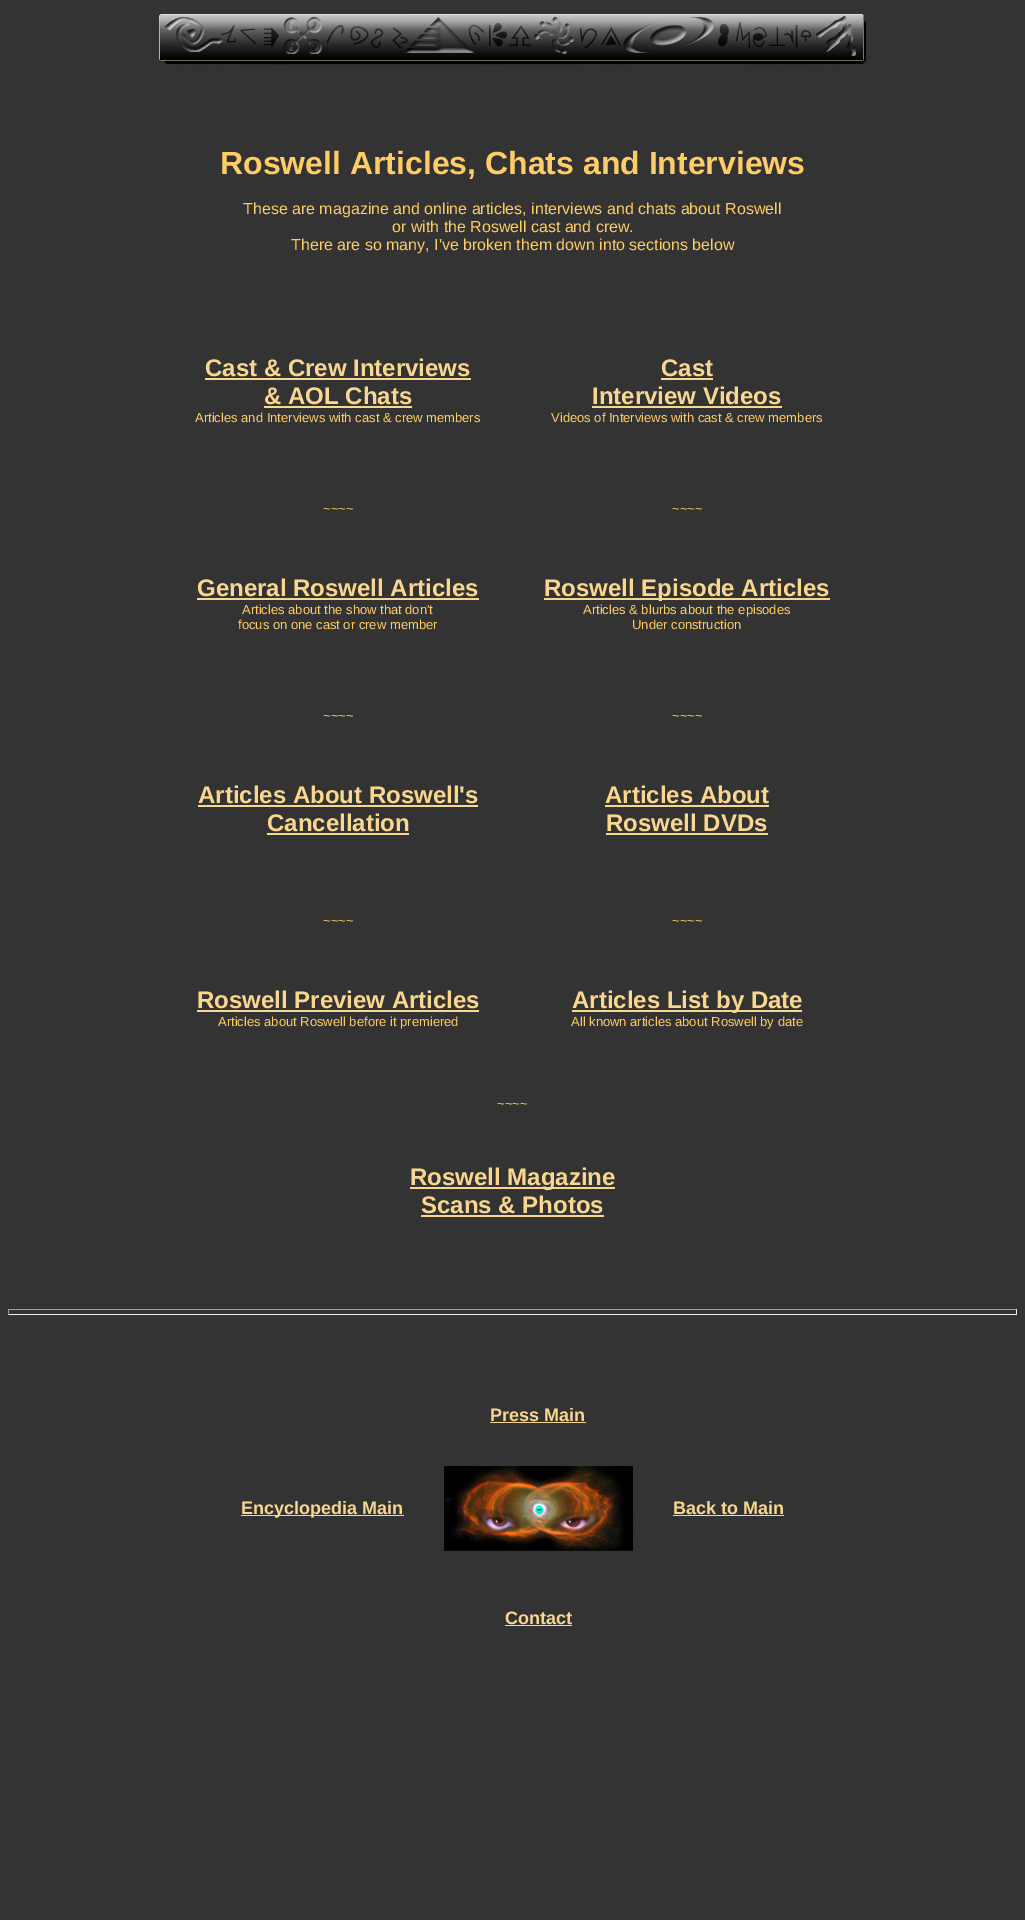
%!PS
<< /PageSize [1025 1920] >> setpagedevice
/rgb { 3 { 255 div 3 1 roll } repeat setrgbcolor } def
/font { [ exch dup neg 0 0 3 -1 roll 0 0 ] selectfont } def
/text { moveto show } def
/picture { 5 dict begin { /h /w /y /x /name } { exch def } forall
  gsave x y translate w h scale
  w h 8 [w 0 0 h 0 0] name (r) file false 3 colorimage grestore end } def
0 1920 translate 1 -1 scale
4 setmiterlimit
51 51 51 rgb
0 0 1025 1920 rectfill
(img_01.rgb) 159 14 708 51 picture
250 215 142 rgb
205 378 266 2 rectfill
264 406 148 2 rectfill
661 378 52 2 rectfill
592 406 190 2 rectfill
197 598 282 2 rectfill
544 598 286 2 rectfill
198 805 280 2 rectfill
267 833 142 2 rectfill
605 805 164 2 rectfill
606 833 162 2 rectfill
197 1010 282 2 rectfill
572 1010 230 2 rectfill
410 1187 205 2 rectfill
421 1215 183 2 rectfill
159 159 159 rgb
8 1309 1009 1 rectfill
238 238 238 rgb
1016 1309 1 6 rectfill
8 1314 1009 1 rectfill
159 159 159 rgb
8 1309 1 6 rectfill
250 215 142 rgb
490 1422 96 1 rectfill
241 1515 163 1 rectfill
(img_02.rgb) 444 1466 189 85 picture
673 1515 111 1 rectfill
505 1625 67 1 rectfill
/LiberationSans-Bold 32 font
255 204 102 rgb
(Roswell Articles, Chats and Interviews) 220 174 text
/LiberationSans-Regular 16 font
(These are magazine and online articles, interviews and chats about Roswell) 243 214 text
(or with the Roswell cast and crew.) 392 232 text
(There are so many, I've broken them down into sections below) 291 250 text
/LiberationSans-Bold 24 font
250 215 142 rgb
(Cast & Crew Interviews) 205 376 text
(& AOL Chats) 264 404 text
/LiberationSans-Regular 13 font
255 204 102 rgb
(Articles and Interviews with cast & crew members) 195 422 text
/LiberationSans-Bold 24 font
250 215 142 rgb
(Cast) 661 376 text
(Interview Videos) 592 404 text
/LiberationSans-Regular 13 font
255 204 102 rgb
(Videos of Interviews with cast & crew members) 551 422 text
(~~~~) 323 513 text
(~~~~) 672 513 text
/LiberationSans-Bold 24 font
250 215 142 rgb
(General Roswell Articles) 197 596 text
/LiberationSans-Regular 13 font
255 204 102 rgb
(Articles about the show that don't) 242 614 text
(focus on one cast or crew member) 238 629 text
/LiberationSans-Bold 24 font
250 215 142 rgb
(Roswell Episode Articles) 544 596 text
/LiberationSans-Regular 13 font
255 204 102 rgb
(Articles & blurbs about the episodes) 583 614 text
(Under construction) 632 629 text
(~~~~) 323 720 text
(~~~~) 672 720 text
/LiberationSans-Bold 24 font
250 215 142 rgb
(Articles About Roswell's) 198 803 text
(Cancellation) 267 831 text
(Articles About) 605 803 text
(Roswell DVDs) 606 831 text
/LiberationSans-Regular 13 font
255 204 102 rgb
(~~~~) 323 925 text
(~~~~) 672 925 text
/LiberationSans-Bold 24 font
250 215 142 rgb
(Roswell Preview Articles) 197 1008 text
/LiberationSans-Regular 13 font
255 204 102 rgb
(Articles about Roswell before it premiered) 218 1026 text
/LiberationSans-Bold 24 font
250 215 142 rgb
(Articles List by Date) 572 1008 text
/LiberationSans-Regular 13 font
255 204 102 rgb
(All known articles about Roswell by date) 571 1026 text
(~~~~) 497 1108 text
/LiberationSans-Bold 24 font
250 215 142 rgb
(Roswell Magazine) 410 1185 text
(Scans & Photos) 421 1213 text
/LiberationSans-Bold 18 font
(Press Main) 490 1421 text
(Encyclopedia Main) 241 1514 text
(Back to Main) 673 1514 text
(Contact) 505 1624 text
showpage
